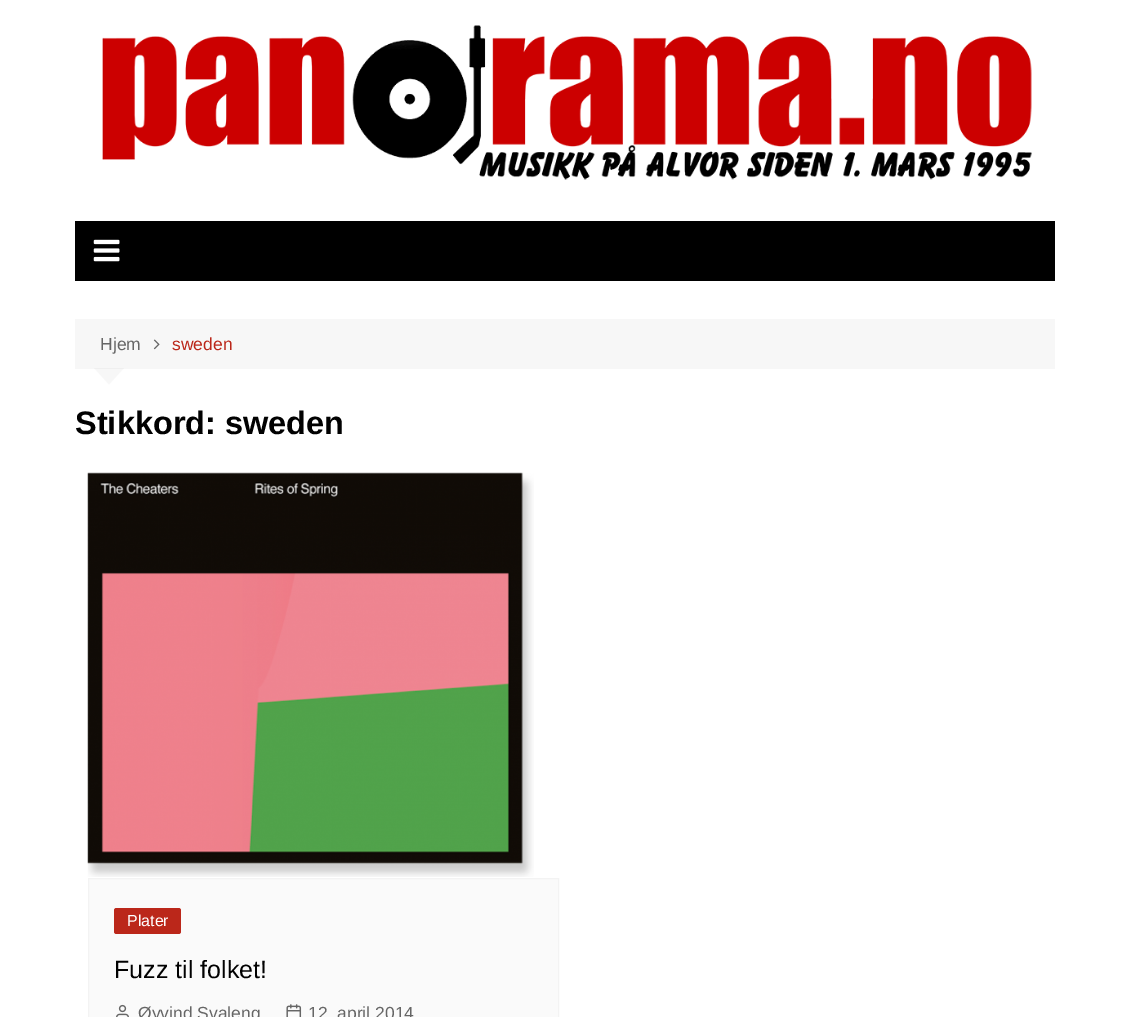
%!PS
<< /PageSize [1130 1017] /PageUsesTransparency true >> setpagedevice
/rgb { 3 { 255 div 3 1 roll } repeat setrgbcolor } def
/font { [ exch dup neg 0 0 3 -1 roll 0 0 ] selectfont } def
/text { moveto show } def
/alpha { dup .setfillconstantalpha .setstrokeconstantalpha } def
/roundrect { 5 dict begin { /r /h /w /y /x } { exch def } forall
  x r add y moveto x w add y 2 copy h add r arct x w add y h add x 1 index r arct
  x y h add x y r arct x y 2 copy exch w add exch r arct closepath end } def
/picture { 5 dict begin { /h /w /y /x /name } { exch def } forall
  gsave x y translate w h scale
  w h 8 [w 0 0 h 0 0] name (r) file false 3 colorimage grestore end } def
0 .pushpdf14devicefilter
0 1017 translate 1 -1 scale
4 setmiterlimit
255 255 255 rgb
0 0 1130 1017 rectfill
(img_01.rgb) 102 25 930 155 picture
0 0 0 rgb
75 221 980 60 rectfill
(img_02.rgb) 93 239 27 23 picture
247 247 247 rgb
75 319 980 50 rectfill
(img_03.rgb) 153 339 7 11 picture
0.03 alpha
0 0 0 rgb
94 368 moveto 30 0 rlineto -15 16.5 rlineto closepath fill
1 alpha
(img_04.rgb) 87 472 447 405 picture
250 250 250 rgb
88.5 878.5 moveto 470 0 rlineto 0 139 rlineto -470 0 rlineto closepath gsave fill grestore
243 243 243 rgb
stroke
187 39 26 rgb
114 908 67 26 2.5 roundrect fill
(img_05.rgb) 116 1004 13 13 picture
(img_06.rgb) 286 1004 16 13 picture
/LiberationSans-Regular 17.5 font
102 102 102 rgb
(Hjem) 100 350 text
187 39 26 rgb
(sweden) 172 350 text
/LiberationSans-Bold 32.5 font
1 1 1 rgb
(Stikkord: sweden) 75 434 text
/LiberationSans-Regular 16 font
255 255 255 rgb
(Plater) 127 926 text
/LiberationSans-Regular 25 font
1 1 1 rgb
(Fuzz til folket!) 114 978 text
/LiberationSans-Regular 17.5 font
102 102 102 rgb
(Øyvind Svaleng) 138 1019 text
(12. april 2014) 308 1019 text
.poppdf14devicefilter showpage
